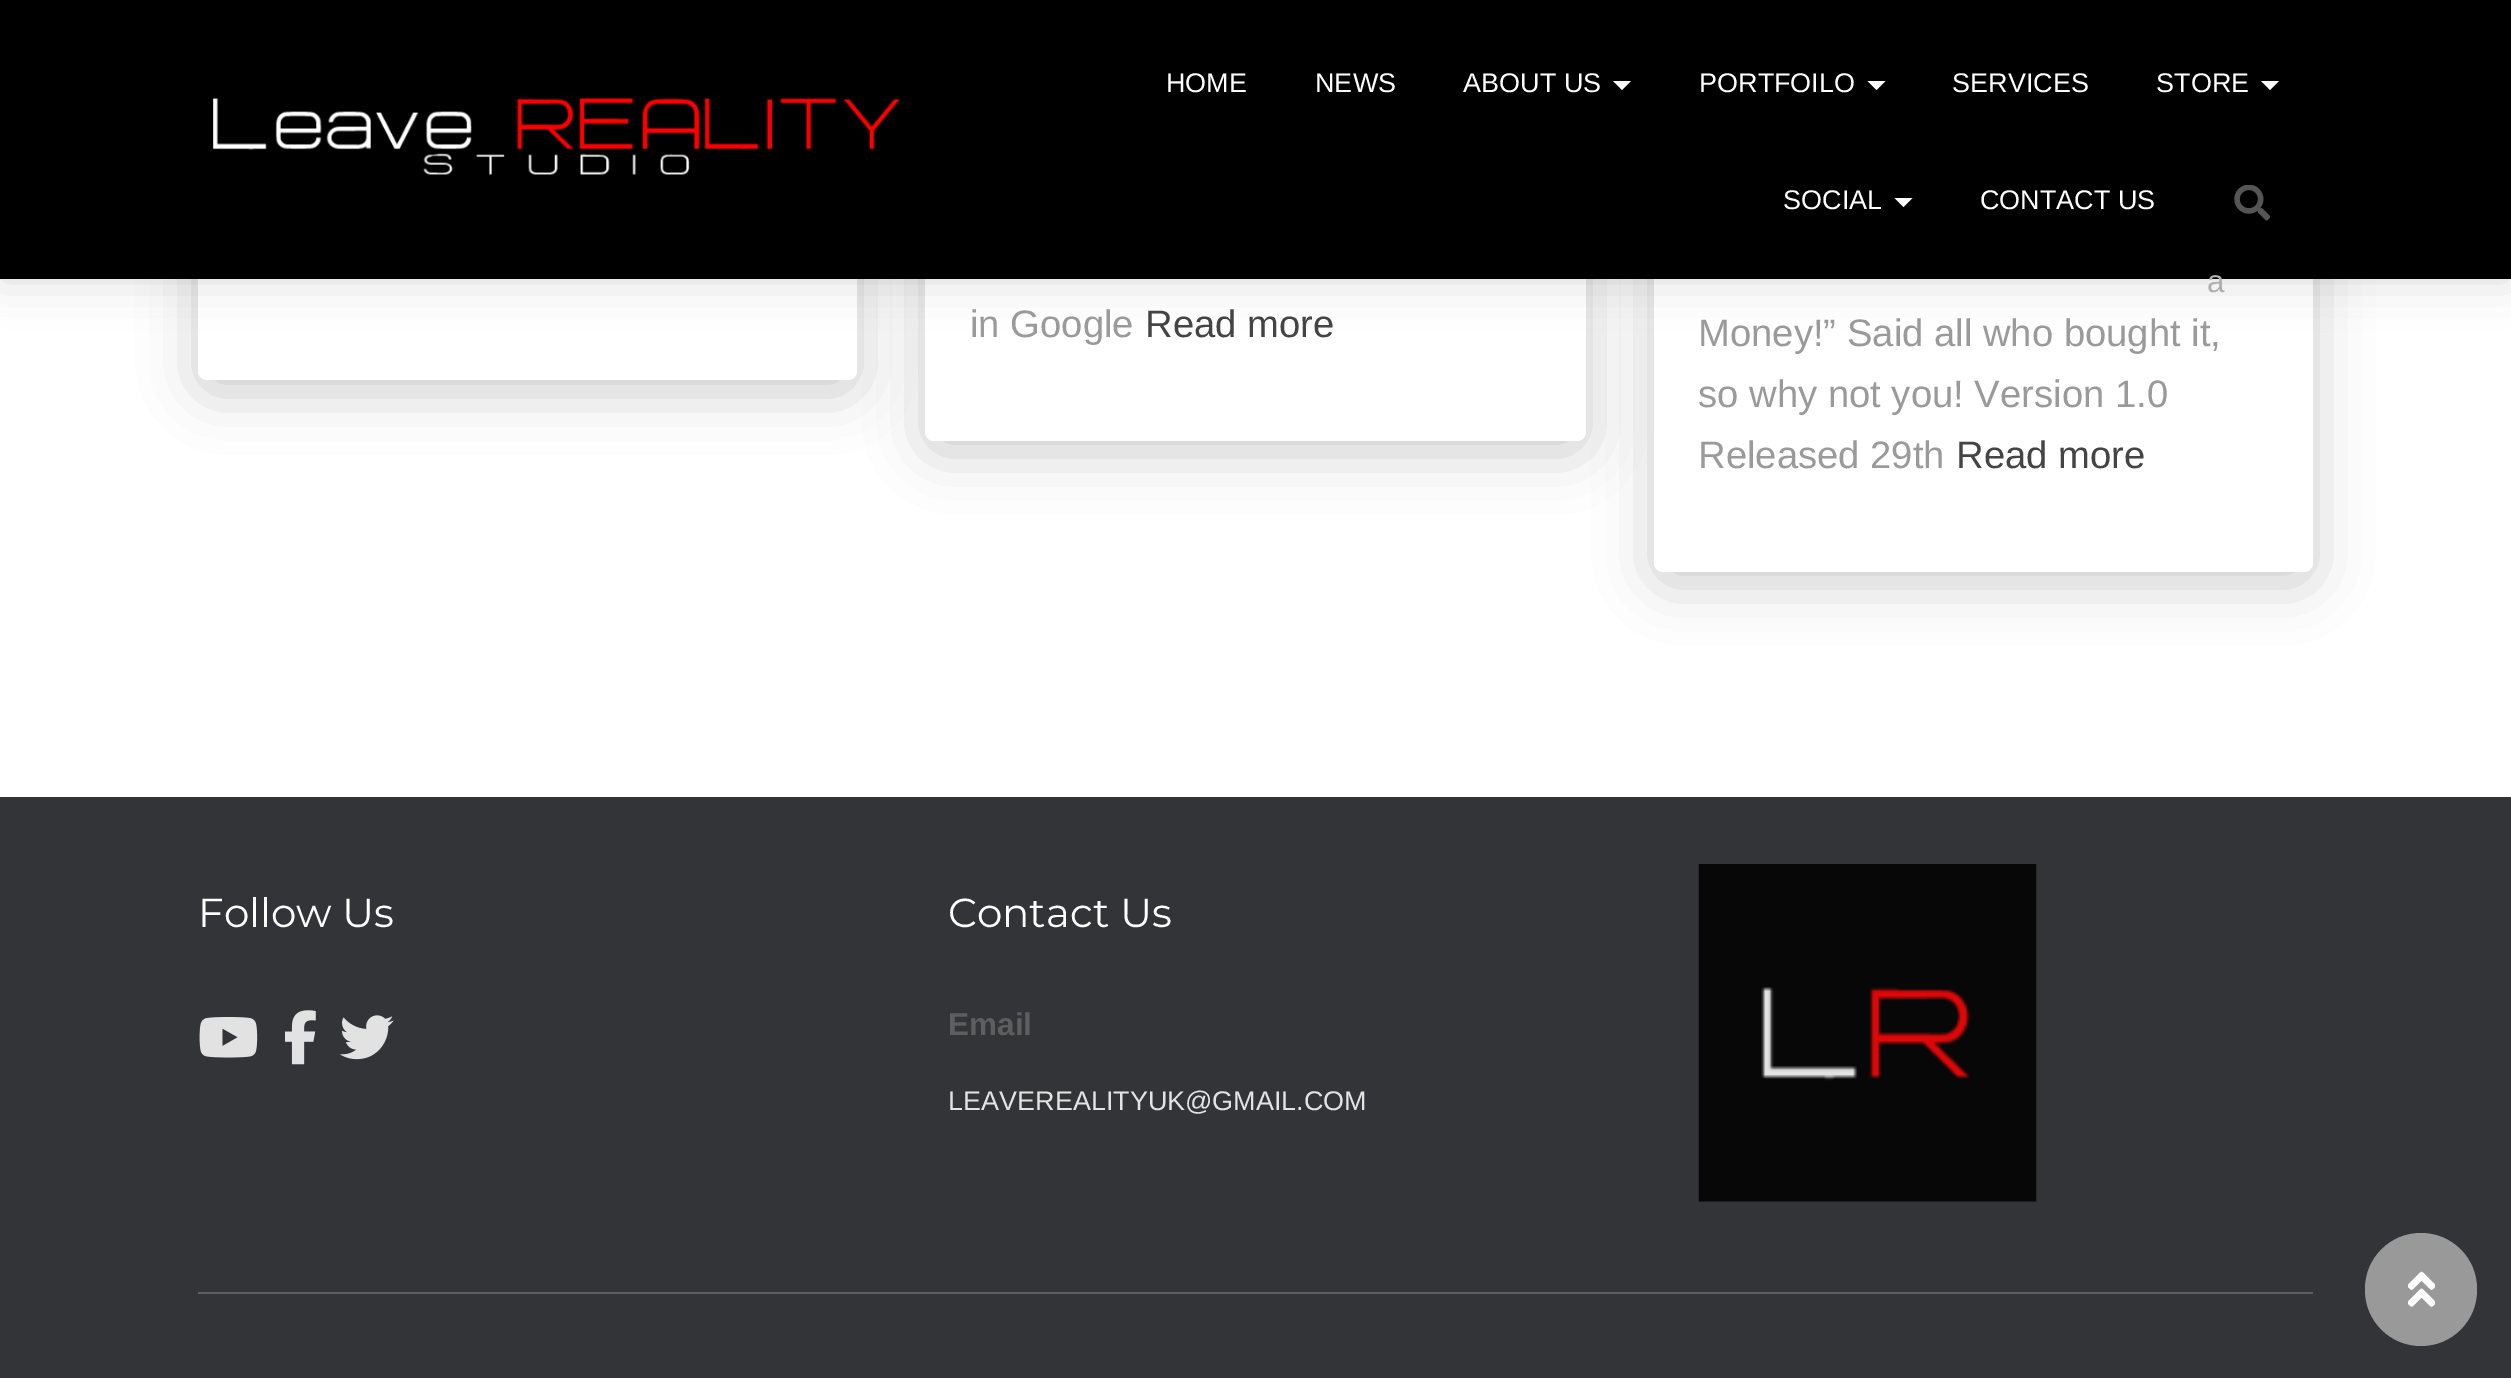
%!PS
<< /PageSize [2511 1378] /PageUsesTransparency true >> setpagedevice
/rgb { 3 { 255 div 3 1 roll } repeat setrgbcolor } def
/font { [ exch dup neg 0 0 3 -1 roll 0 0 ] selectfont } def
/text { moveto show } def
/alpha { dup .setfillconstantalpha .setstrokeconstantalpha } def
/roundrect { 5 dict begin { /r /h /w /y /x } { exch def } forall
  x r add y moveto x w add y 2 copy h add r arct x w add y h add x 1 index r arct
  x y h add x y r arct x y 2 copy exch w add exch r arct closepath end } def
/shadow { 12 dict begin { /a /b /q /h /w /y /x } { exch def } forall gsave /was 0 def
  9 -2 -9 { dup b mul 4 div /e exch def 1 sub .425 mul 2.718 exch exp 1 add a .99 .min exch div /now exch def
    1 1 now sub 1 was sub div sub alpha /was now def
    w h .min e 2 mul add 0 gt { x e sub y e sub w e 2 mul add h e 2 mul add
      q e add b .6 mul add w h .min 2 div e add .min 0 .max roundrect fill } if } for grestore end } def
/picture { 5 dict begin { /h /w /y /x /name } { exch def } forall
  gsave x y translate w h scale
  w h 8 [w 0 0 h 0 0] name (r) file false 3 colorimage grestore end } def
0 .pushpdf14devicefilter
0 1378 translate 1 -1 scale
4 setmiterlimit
255 255 255 rgb
0 0 2511 1378 rectfill
0 0 0 rgb
198 -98 659 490 14 28 0.2 shadow
255 255 255 rgb
198 -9 moveto 659 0 rlineto 0 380 rlineto 0 5 -4 9 -9 9 rcurveto -641 0 rlineto -5 0 -9 -4 -9 -9 rcurveto closepath fill
0 0 0 rgb
925 -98 661 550 14 28 0.2 shadow
255 255 255 rgb
925 -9 moveto 661 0 rlineto 0 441 rlineto 0 5 -4 9 -9 9 rcurveto -643 0 rlineto -5 0 -9 -4 -9 -9 rcurveto closepath fill
0 0 0 rgb
1654 -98 659 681 14 28 0.2 shadow
255 255 255 rgb
1654 -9 moveto 659 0 rlineto 0 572 rlineto 0 5 -4 9 -9 9 rcurveto -641 0 rlineto -5 0 -9 -4 -9 -9 rcurveto closepath fill
0 0 0 rgb
0 0 2511 279 0 22.5 0.15 shadow
0 0 2511 279 rectfill
(img_01.rgb) 213 98 688 77 picture
255 255 255 rgb
1613 81 moveto 18 0 rlineto -9 9 rlineto closepath fill
1867.5 81 moveto 18 0 rlineto -9 9 rlineto closepath fill
2261 81 moveto 18 0 rlineto -9 9 rlineto closepath fill
1894.5 198 moveto 18 0 rlineto -9 9 rlineto closepath fill
(img_02.rgb) 2234 185 36 36 picture
50 52 55 rgb
0 797 2511 581 rectfill
(img_03.rgb) 199 1017 59 41 picture
(img_04.rgb) 285 1010 31 55 picture
(img_05.rgb) 340 1015 54 45 picture
(img_06.rgb) 1698 864 339 338 picture
94 94 94 rgb
198 1292 2115 2 rectfill
153 153 153 rgb
2365 1233 112 113 56 roundrect fill
(img_07.rgb) 2408 1271 27 36 picture
/LiberationSans-Regular 27 font
255 255 255 rgb
(HOME) 1166 92 text
(NEWS) 1315 92 text
(ABOUT US) 1463 92 text
(PORTFOILO) 1699 92 text
(SERVICES) 1952 92 text
(STORE) 2156 92 text
(SOCIAL) 1783 209 text
(CONTACT US) 1980 209 text
/LiberationSans-Regular 31.5 font
174 174 174 rgb
(a) 2207 292 text
/LiberationSans-Regular 38.25 font
154 154 154 rgb
(in Google) 970 337 text
68 68 68 rgb
(Read more) 1145 337 text
154 154 154 rgb
(Money!” Said all who bought it,) 1698 346 text
(so why not you! Version 1.0) 1698 407 text
(Released 29th) 1698 468 text
68 68 68 rgb
(Read more) 1956 468 text
/Montserrat-Regular 40.5 font
255 255 255 rgb
(Follow Us) 198 927 text
(Contact Us) 948 927 text
/LiberationSans-Bold 31.5 font
94 94 94 rgb
(Email) 948 1035 text
/LiberationSans-Regular 27 font
226 227 227 rgb
(LEAVEREALITYUK@GMAIL.COM) 948 1110 text
.poppdf14devicefilter showpage
